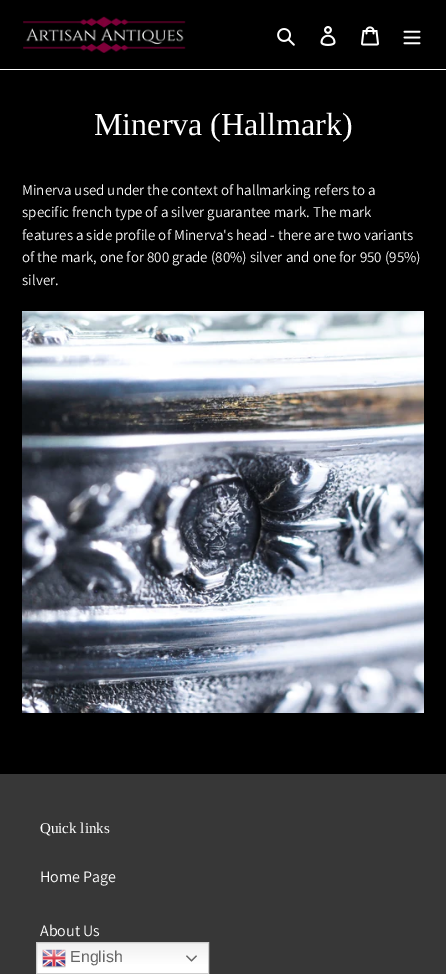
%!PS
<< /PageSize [446 974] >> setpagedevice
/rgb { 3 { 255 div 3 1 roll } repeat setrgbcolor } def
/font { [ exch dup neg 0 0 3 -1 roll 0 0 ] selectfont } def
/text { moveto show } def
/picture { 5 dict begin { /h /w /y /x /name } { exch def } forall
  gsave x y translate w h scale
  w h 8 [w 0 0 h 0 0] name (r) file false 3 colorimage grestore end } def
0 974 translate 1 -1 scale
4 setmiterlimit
0 0 0 rgb
0 0 446 974 rectfill
255 255 255 rgb
0 69 446 1 rectfill
(img_01.rgb) 23 16 163 37 picture
(img_02.rgb) 277 28 18 18 picture
(img_03.rgb) 320 26 16 20 picture
(img_04.rgb) 361 26 18 20 picture
(img_05.rgb) 403 30 18 15 picture
(img_06.rgb) 22 311 402 402 picture
55 55 55 rgb
0 774 446 200 rectfill
gsave 37 943 moveto 171 0 rlineto 0 30 rlineto -171 0 rlineto closepath clip newpath
<< /ShadingType 2 /ColorSpace /DeviceRGB /Coords [123 942 123 974] /Extend [true true] /Function << /FunctionType 3 /Domain [0 1] /Functions [<< /FunctionType 2 /Domain [0 1] /C0 [0.937 0.937 0.937] /C1 [1 1 1] /N 1 >> << /FunctionType 2 /Domain [0 1] /C0 [1 1 1] /C1 [1 1 1] /N 1 >>] /Bounds [0.7] /Encode [0 1 0 1] >> >> shfill grestore
204 204 204 rgb
36.5 942.5 172 31 rectstroke
(img_07.rgb) 42 949 24 19 picture
(img_08.rgb) 186 955 11 7 picture
/LiberationSerif-Regular 32 font
255 255 255 rgb
(Minerva \(Hallmark\)) 94 135 text
/Assistant-Regular 15 font
(Minerva used under the context of hallmarking refers to a) 22 195 text
(specific french type of a silver guarantee mark. The mark) 22 217 text
(features a side profile of Minerva's head - there are two variants) 22 240 text
(of the mark, one for 800 grade \(80%\) silver and one for 950 \(95%\)) 22 262 text
(silver.) 22 285 text
/LiberationSerif-Regular 15 font
(Quick links) 40 833 text
/Assistant-Regular 16 font
(Home Page) 40 882 text
(About Us) 40 936 text
/LiberationSans-Regular 16 font
102 102 102 rgb
(English) 70 962 text
showpage
